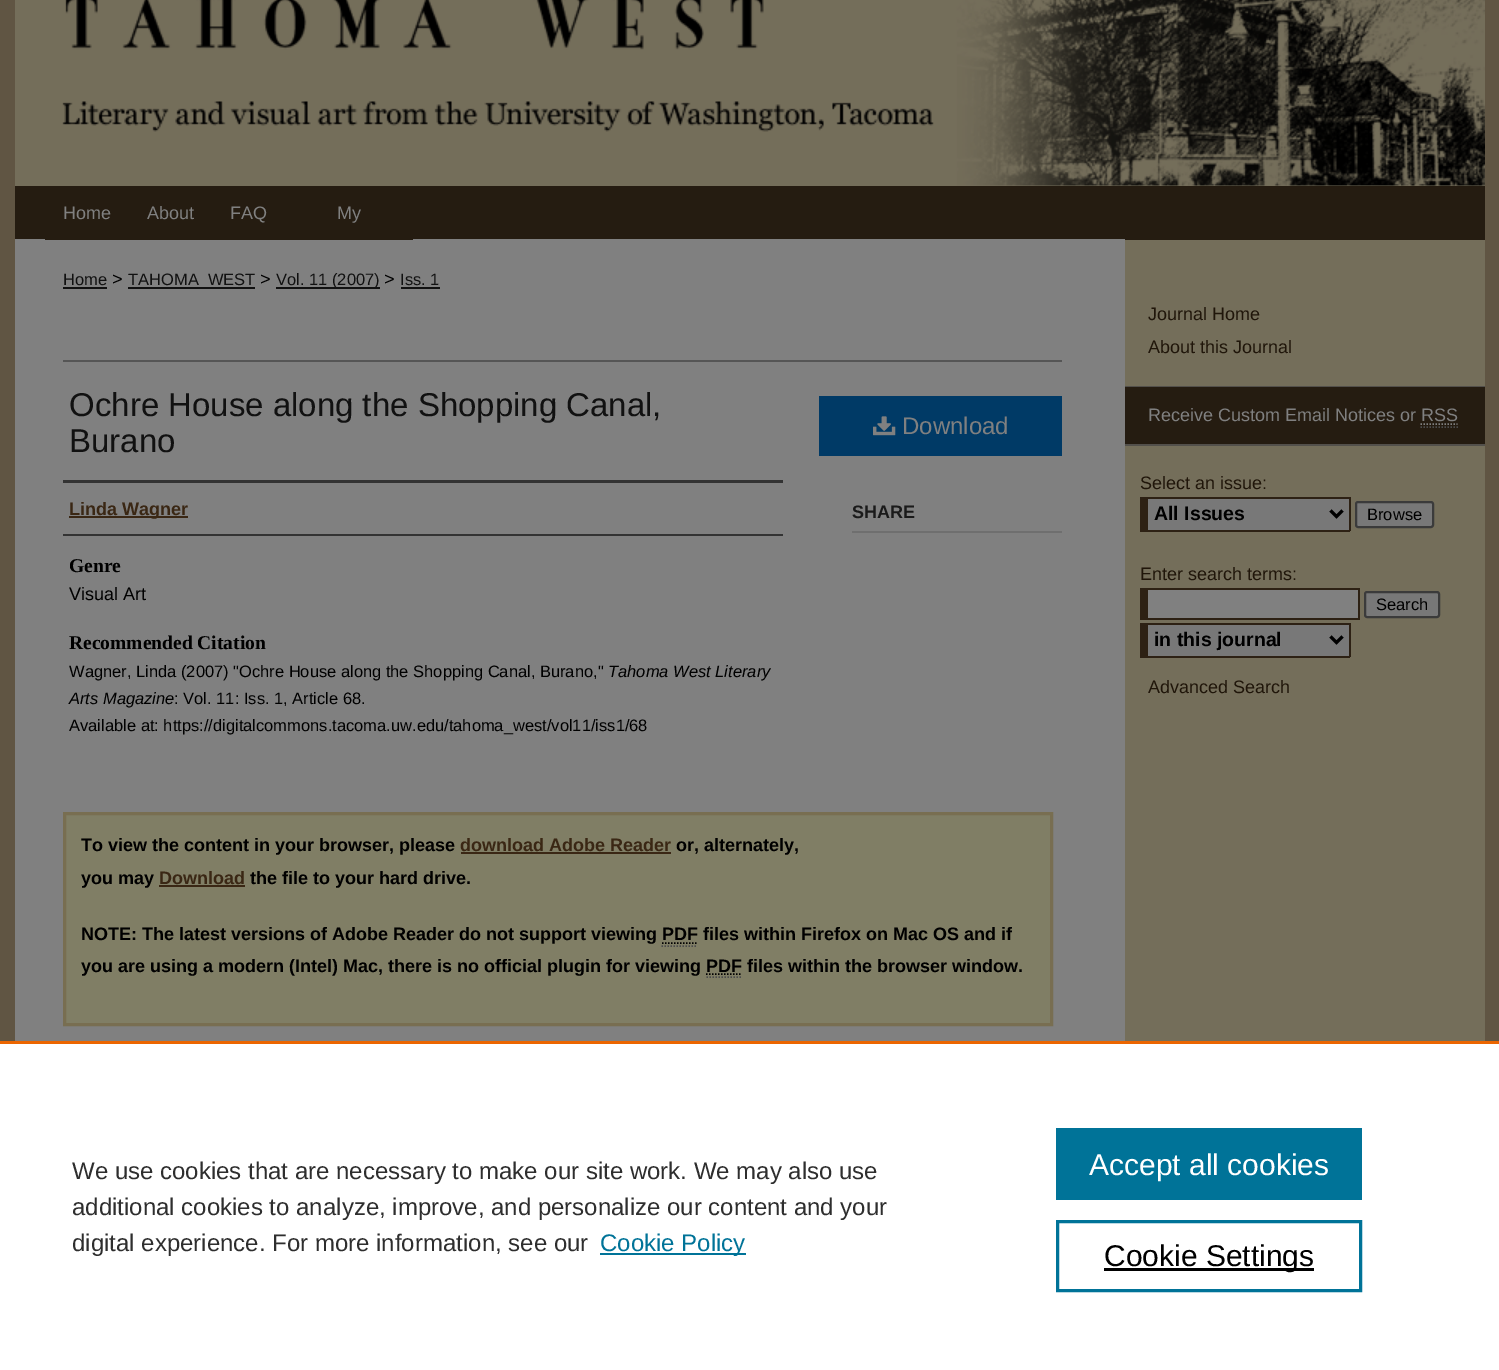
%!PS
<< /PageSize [1499 1370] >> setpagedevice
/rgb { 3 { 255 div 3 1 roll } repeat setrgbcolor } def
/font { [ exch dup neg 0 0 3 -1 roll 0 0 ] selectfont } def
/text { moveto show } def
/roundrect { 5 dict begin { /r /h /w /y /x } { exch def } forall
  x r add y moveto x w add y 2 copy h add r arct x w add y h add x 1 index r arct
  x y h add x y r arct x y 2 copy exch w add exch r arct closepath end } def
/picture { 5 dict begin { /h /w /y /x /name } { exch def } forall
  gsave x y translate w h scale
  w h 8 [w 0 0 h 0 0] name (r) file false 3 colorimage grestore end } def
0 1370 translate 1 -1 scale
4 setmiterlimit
96 85 67 rgb
0 0 1499 1370 rectfill
116 110 90 rgb
15 0 1470 186 rectfill
(img_01.rgb) 62 0 1423 186 picture
37 28 17 rgb
15 186 1470 54 rectfill
128 128 128 rgb
15 239 1110 802 rectfill
37 28 17 rgb
45 239 368 1 rectfill
116 110 90 rgb
1125 240 360 801 rectfill
17 17 17 rgb
63 287 44 2 rectfill
128 287 127 2 rectfill
276 287 104 2 rectfill
401 287 39 2 rectfill
85 85 85 rgb
63 360 999 2 rectfill
51 51 51 rgb
63 480 720 3 rectfill
63 534 720 2 rectfill
58 39 20 rgb
69 516 119 2 rectfill
0 58 102 rgb
819 396 243 60 rectfill
(img_02.rgb) 873 416 23 20 picture
111 111 111 rgb
852 531 210 2 rectfill
128 126 101 rgb
64.5 813.5 moveto 987 0 rlineto 0 211 rlineto -987 0 rlineto closepath gsave fill grestore
120 110 81 rgb
3 setlinewidth
stroke
58 39 20 rgb
461 852 210 2 rectfill
159 885 86 2 rectfill
0 0 0 rgb
1.5 setlinewidth
[1.5 1.5] 0 setdash
662 943 moveto 36 0 rlineto stroke
77 77 77 rgb
661.5 946 moveto 36 0 rlineto stroke
0 0 0 rgb
706 974 moveto 36 0 rlineto stroke
77 77 77 rgb
706.5 977 moveto 36 0 rlineto stroke
83 80 75 rgb
1125 386 360 1 rectfill
37 28 17 rgb
1125 387 360 57 rectfill
83 80 75 rgb
1125 444 360 2 rectfill
128 128 128 rgb
1420.5 424 moveto 37 0 rlineto stroke
77 77 77 rgb
1420.5 427 moveto 37.5 0 rlineto stroke
120 120 120 rgb
1148 499 201 31 rectfill
45 33 20 rgb
1140 497 210 2 rectfill
1349 497 2 34 rectfill
1140 530 210 2 rectfill
1140 497 8 34 rectfill
0 0 0 rgb
3 setlinewidth
[] 0 setdash
1330.5 510.5 moveto 6 6 rlineto 6 -6 rlineto stroke
120 120 120 rgb
1356 502 77 25 2 roundrect gsave fill grestore
59 59 59 rgb
2 setlinewidth
stroke
128 128 128 rgb
1148 590 210 28 rectfill
45 33 20 rgb
1140 588 219 2 rectfill
1358 588 2 32 rectfill
1140 618 219 2 rectfill
1140 588 8 32 rectfill
120 120 120 rgb
1365 592 74 25 2 roundrect gsave fill grestore
59 59 59 rgb
stroke
120 120 120 rgb
1148 625 201 31 rectfill
45 33 20 rgb
1140 623 210 2 rectfill
1349 623 2 34 rectfill
1140 656 210 2 rectfill
1140 623 8 34 rectfill
0 0 0 rgb
3 setlinewidth
1330.5 636.5 moveto 6 6 rlineto 6 -6 rlineto stroke
255 255 255 rgb
0 1044 1499 326 rectfill
235 101 0 rgb
0 1041 1499 3 rectfill
0 115 152 rgb
600 1253 146 2 rectfill
1056 1128 306 72 rectfill
1057.5 1221.5 303 69 rectstroke
0 0 0 rgb
1104 1268 210 3 rectfill
/LiberationSans-Regular 18 font
128 128 128 rgb
(Home) 63 219 text
(About) 147 219 text
(FAQ) 230 219 text
(My) 337 219 text
/LiberationSans-Regular 16.5 font
17 17 17 rgb
(Home) 63 285 text
/LiberationSans-Regular 18 font
0 0 0 rgb
(>) 112 285 text
/LiberationSans-Regular 16.5 font
17 17 17 rgb
(TAHOMA_WEST) 128 285 text
/LiberationSans-Regular 18 font
0 0 0 rgb
(>) 260 285 text
/LiberationSans-Regular 16.5 font
17 17 17 rgb
(Vol. 11 \(2007\)) 276 285 text
/LiberationSans-Regular 18 font
0 0 0 rgb
(>) 384 285 text
/LiberationSans-Regular 16.5 font
17 17 17 rgb
(Iss. 1) 400 285 text
/LiberationSans-Regular 33 font
(Ochre House along the Shopping Canal,) 69 416 text
(Burano) 69 452 text
/LiberationSans-Bold 18 font
58 39 20 rgb
(Linda Wagner) 69 515 text
/LiberationSerif-Bold 19.5 font
0 0 0 rgb
(Genre) 69 572 text
/LiberationSans-Regular 18 font
(Visual Art) 69 600 text
/LiberationSerif-Bold 19.5 font
(Recommended Citation) 69 649 text
/LiberationSans-Regular 16.5 font
(Wagner, Linda \(2007\) "Ochre House along the Shopping Canal, Burano,") 69 677 text
/LiberationSans-Italic 16.5 font
(Tahoma West Literary) 608 677 text
(Arts Magazine) 69 704 text
/LiberationSans-Regular 16.5 font
(: Vol. 11: Iss. 1, Article 68.) 174 704 text
(Available at: https://digitalcommons.tacoma.uw.edu/tahoma_west/vol11/iss1/68) 69 731 text
/LiberationSans-Regular 24 font
128 128 128 rgb
(Download) 902 434 text
/LiberationSans-Bold 18 font
26 26 26 rgb
(SHARE) 852 518 text
0 0 0 rgb
(To view the content in your browser, please) 81 851 text
58 39 20 rgb
(download Adobe Reader) 460 851 text
0 0 0 rgb
(or, alternately,) 676 851 text
(you may) 81 884 text
58 39 20 rgb
(Download) 159 884 text
0 0 0 rgb
(the file to your hard drive.) 250 884 text
(NOTE: The latest versions of Adobe Reader do not support viewing PDF files within Firefox on Mac OS and if) 81 940 text
(you are using a modern \(Intel\) Mac, there is no official plugin for viewing PDF files within the browser window.) 81 972 text
/LiberationSans-Regular 18 font
32 22 10 rgb
(Journal Home) 1148 320 text
(About this Journal) 1148 353 text
128 128 128 rgb
(Receive Custom Email Notices or RSS) 1148 421 text
32 22 10 rgb
(Select an issue:) 1140 489 text
/LiberationSans-Bold 19.5 font
0 0 0 rgb
(All Issues) 1154 520 text
/LiberationSans-Regular 16.5 font
(Browse) 1367 520 text
/LiberationSans-Regular 18 font
32 22 10 rgb
(Enter search terms:) 1140 580 text
/LiberationSans-Regular 16.5 font
0 0 0 rgb
(Search) 1376 610 text
/LiberationSans-Bold 19.5 font
(in this journal) 1154 646 text
/LiberationSans-Regular 18 font
32 22 10 rgb
(Advanced Search) 1148 693 text
/LiberationSans-Regular 24 font
46 46 46 rgb
(We use cookies that are necessary to make our site work. We may also use) 72 1179 text
(additional cookies to analyze, improve, and personalize our content and your) 72 1215 text
(digital experience. For more information, see our) 72 1251 text
0 115 152 rgb
(Cookie Policy) 600 1251 text
/LiberationSans-Regular 30 font
255 255 255 rgb
(Accept all cookies) 1089 1175 text
0 0 0 rgb
(Cookie Settings) 1104 1266 text
showpage
